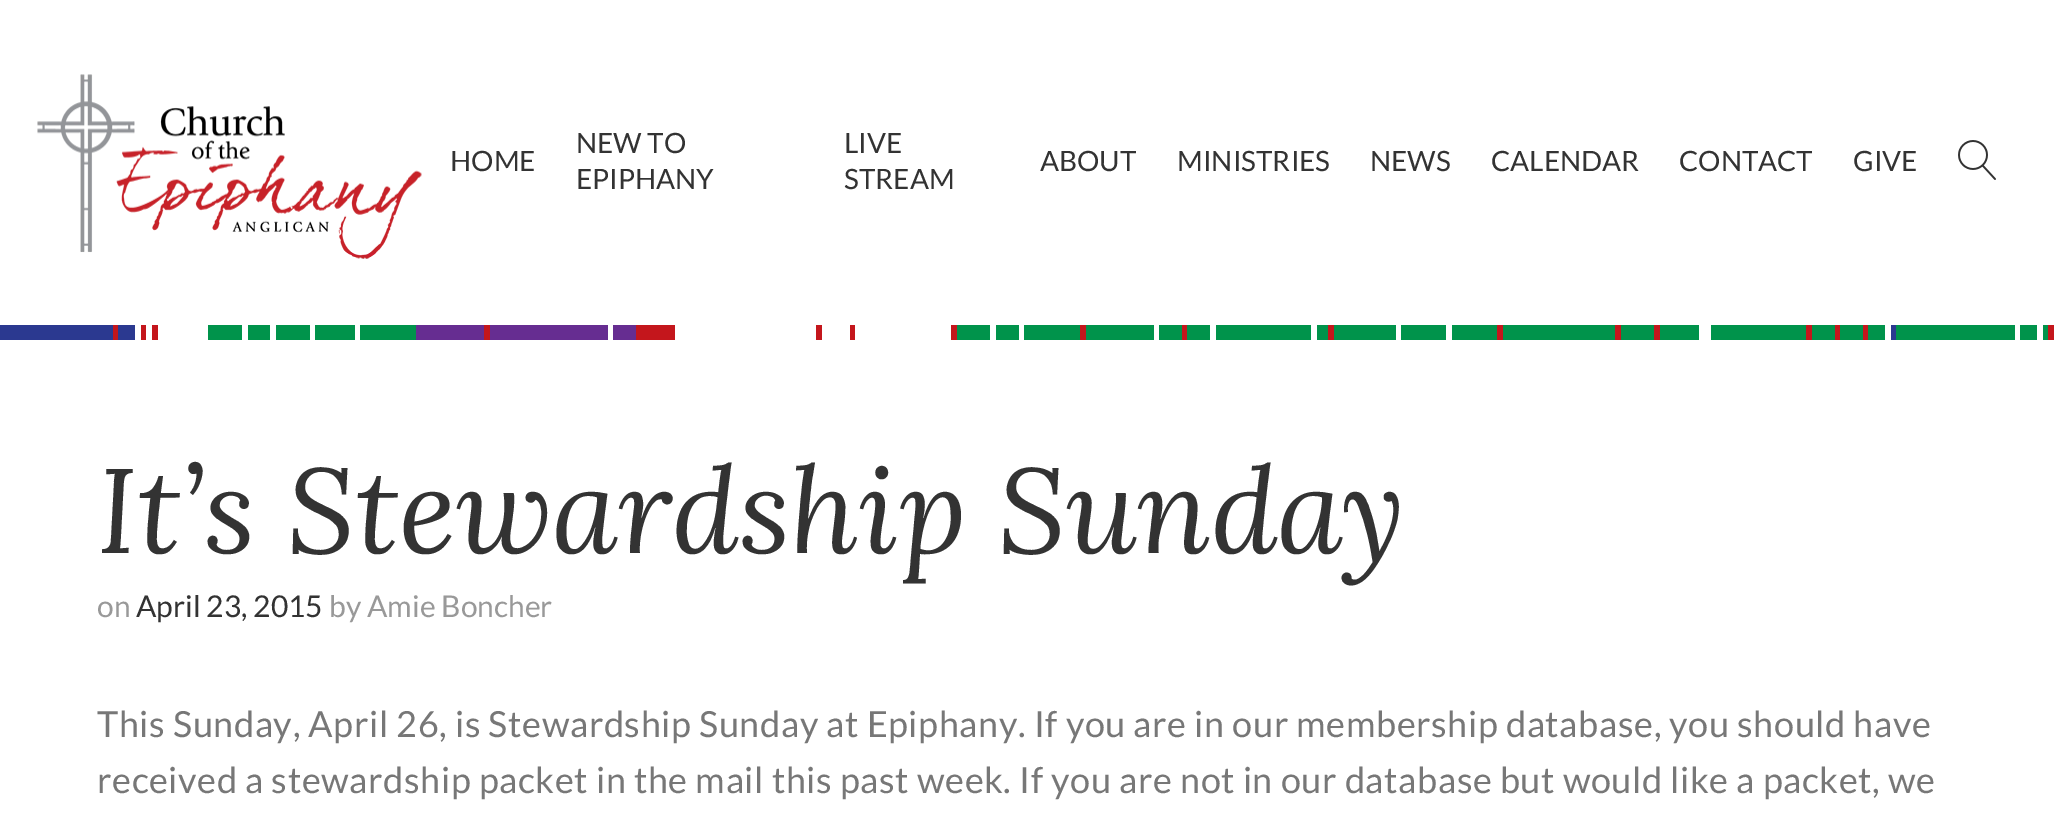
%!PS
<< /PageSize [2054 819] >> setpagedevice
/rgb { 3 { 255 div 3 1 roll } repeat setrgbcolor } def
/font { [ exch dup neg 0 0 3 -1 roll 0 0 ] selectfont } def
/text { moveto show } def
/picture { 5 dict begin { /h /w /y /x /name } { exch def } forall
  gsave x y translate w h scale
  w h 8 [w 0 0 h 0 0] name (r) file false 3 colorimage grestore end } def
0 819 translate 1 -1 scale
4 setmiterlimit
255 255 255 rgb
0 0 2054 819 rectfill
(img_01.rgb) 37 74 385 185 picture
(img_02.rgb) 1958 140 38 40 picture
(img_03.rgb) 0 325 2054 15 picture
/Lato-Regular 28 font
51 51 51 rgb
(HOME) 450 171 text
(NEW TO) 576 153 text
(EPIPHANY) 576 189 text
(LIVE) 844 153 text
(STREAM) 844 189 text
(ABOUT) 1040 171 text
(MINISTRIES) 1177 171 text
(NEWS) 1370 171 text
(CALENDAR) 1491 171 text
(CONTACT) 1679 171 text
(GIVE) 1853 171 text
/Lora-Italic 120 font
(It’s Stewardship Sunday) 97 553 text
/Lato-Regular 30 font
153 153 153 rgb
(on) 97 617 text
51 51 51 rgb
(April 23, 2015) 136 617 text
153 153 153 rgb
(by Amie Boncher) 329 617 text
/Lato-Regular 36 font
119 119 119 rgb
97 737 moveto 0.6 0 (This Sunday, April 26, is Stewardship Sunday at Epiphany. If you are in our membership database, you should have) ashow
97 793 moveto 0.6 0 (received a stewardship packet in the mail this past week. If you are not in our database but would like a packet, we) ashow
showpage
